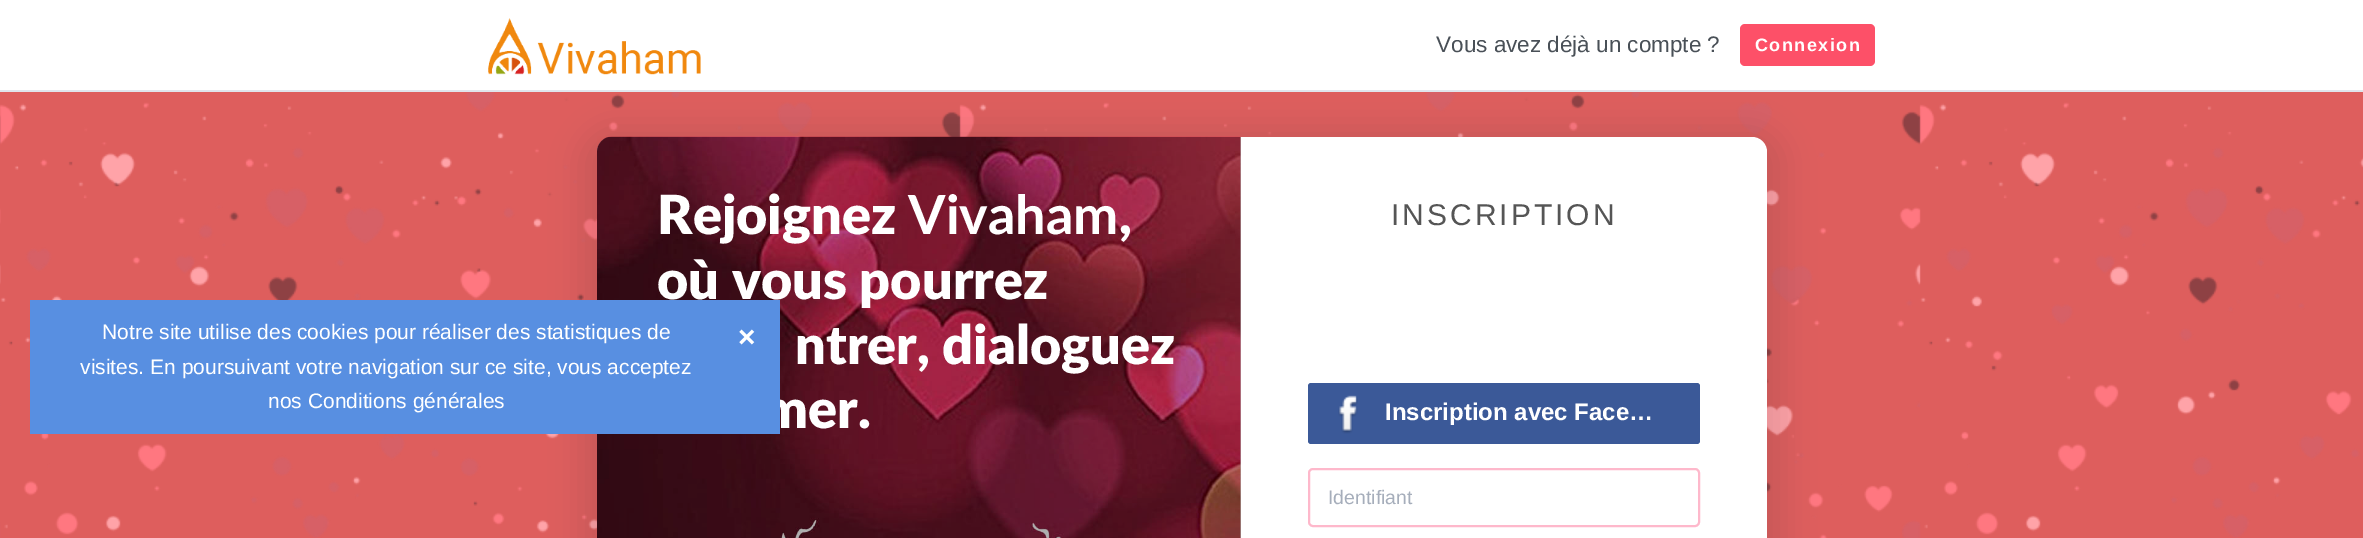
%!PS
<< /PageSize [2363 538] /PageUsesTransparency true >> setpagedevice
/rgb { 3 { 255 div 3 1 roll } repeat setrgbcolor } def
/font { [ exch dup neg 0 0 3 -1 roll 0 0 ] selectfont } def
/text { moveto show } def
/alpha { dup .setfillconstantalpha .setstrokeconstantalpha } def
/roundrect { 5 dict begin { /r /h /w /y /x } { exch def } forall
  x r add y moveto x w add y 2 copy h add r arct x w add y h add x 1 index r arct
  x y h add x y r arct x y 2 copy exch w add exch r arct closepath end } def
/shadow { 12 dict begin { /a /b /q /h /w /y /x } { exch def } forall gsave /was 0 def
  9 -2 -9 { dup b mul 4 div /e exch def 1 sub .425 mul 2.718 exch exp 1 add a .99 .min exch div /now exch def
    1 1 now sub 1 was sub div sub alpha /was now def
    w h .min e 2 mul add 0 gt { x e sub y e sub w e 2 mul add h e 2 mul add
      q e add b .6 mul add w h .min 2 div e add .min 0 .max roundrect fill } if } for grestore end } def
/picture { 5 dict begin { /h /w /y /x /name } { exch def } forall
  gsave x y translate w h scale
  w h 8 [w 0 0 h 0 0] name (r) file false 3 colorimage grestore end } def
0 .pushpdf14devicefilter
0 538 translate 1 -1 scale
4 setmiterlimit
222 94 93 rgb
0 0 2363 538 rectfill
(img_01.rgb) 0 92 2363 446 picture
255 255 255 rgb
0 0 2363 90 rectfill
224 229 236 rgb
0 90 2363 2 rectfill
(img_02.rgb) 488 18 213 57 picture
253 80 104 rgb
1740 24 135 42 5 roundrect fill
24 24 31 rgb
581 128 1203 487 32 15 0.1 shadow
255 255 255 rgb
597 137 1170 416 15 roundrect fill
(img_03.rgb) 597 136 644 402 picture
0.3 alpha
0 0 0 rgb
612 137 moveto 629 0 rlineto 0 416 rlineto -629 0 rlineto -8.5 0 -15 -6.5 -15 -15 rcurveto 0 -386 rlineto 0 -8.5 6.5 -15 15 -15 rcurveto closepath fill
1 alpha
59 89 152 rgb
1308 383 392 61 3 roundrect fill
(img_04.rgb) 1338 395 20 39 picture
254 184 203 rgb
2 setlinewidth
1309 469 390 57 4 roundrect stroke
/LiberationSans-Regular 22.5 font
73 80 87 rgb
(Vous avez déjà un compte ?) 1436 52 text
/LiberationSans-Bold 18 font
255 255 255 rgb
1755 51 moveto 1.5 0 (Connexion) ashow
/Lato-ExtraBold 54 font
(Rejoignez) 657 234 text
/Lato-Bold 54 font
(Vivaham) 908 234 text
/Lato-ExtraBold 54 font
(,) 1119 234 text
(où vous pourrez) 657 299 text
(ntrer, dialoguez) 795 364 text
(mer.) 762 428 text
88 143 225 rgb
30 300 750 134 rectfill
/LiberationSans-Bold 30 font
255 255 255 rgb
(×) 738 347 text
/LiberationSans-Regular 21 font
(nos Conditions générales) 268 408 text
(visites. En poursuivant votre navigation sur ce site, vous acceptez) 80 374 text
(Notre site utilise des cookies pour réaliser des statistiques de) 102 339 text
/LiberationSans-Regular 30 font
85 85 85 rgb
1391 225 moveto 3 0 (INSCRIPTION) ashow
/LiberationSans-Bold 24 font
255 255 255 rgb
(Inscription avec Face…) 1385 420 text
/LiberationSans-Regular 19.5 font
166 174 187 rgb
(Identifiant) 1328 504 text
.poppdf14devicefilter showpage
